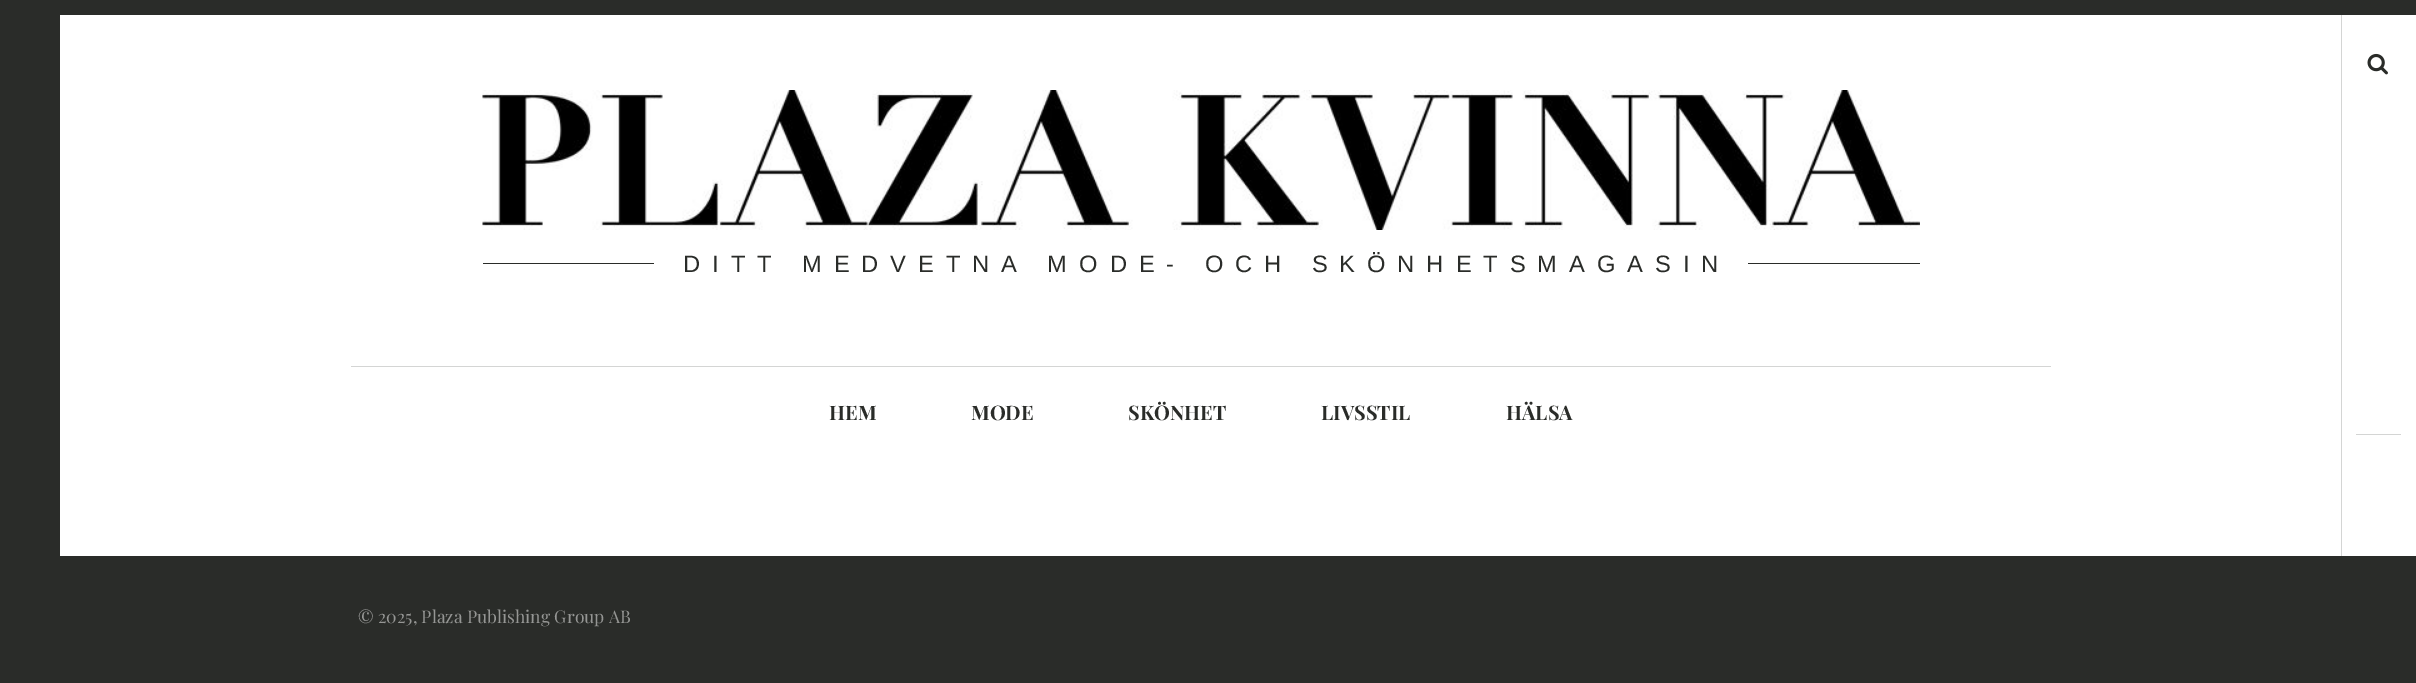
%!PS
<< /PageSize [2416 683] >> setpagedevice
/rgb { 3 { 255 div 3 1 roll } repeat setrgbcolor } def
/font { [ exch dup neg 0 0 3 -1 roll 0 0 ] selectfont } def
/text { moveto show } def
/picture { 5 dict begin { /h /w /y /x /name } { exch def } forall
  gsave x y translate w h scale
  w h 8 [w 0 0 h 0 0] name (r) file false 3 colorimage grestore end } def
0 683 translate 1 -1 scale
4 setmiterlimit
255 255 255 rgb
0 0 2416 683 rectfill
212 213 212 rgb
2341 14 1 542 rectfill
42 44 41 rgb
0 0 60 683 rectfill
60 0 2356 15 rectfill
(img_01.rgb) 482 90 1438 140 picture
483 263 1437 1 rectfill
255 255 255 rgb
654 263 1094 1 rectfill
212 213 212 rgb
351 366 1700 1 rectfill
42 44 41 rgb
60 556 2356 127 rectfill
(img_02.rgb) 2367 53 21 22 picture
212 213 212 rgb
2356 434 45 1 rectfill
/LiberationSans-Regular 23.75 font
42 44 41 rgb
683 272 moveto 11.9 0 (DITT MEDVETNA MODE- OCH SKÖNHETSMAGASIN) ashow
/PlayfairDisplay-Bold 20 font
(HEM) 829 420 text
(MODE) 971 420 text
(SKÖNHET) 1128 420 text
(LIVSSTIL) 1321 420 text
(HÄLSA) 1506 420 text
/PlayfairDisplay-Regular 17.5 font
149 150 148 rgb
(© 2025, Plaza Publishing Group AB) 358 623 text
showpage
